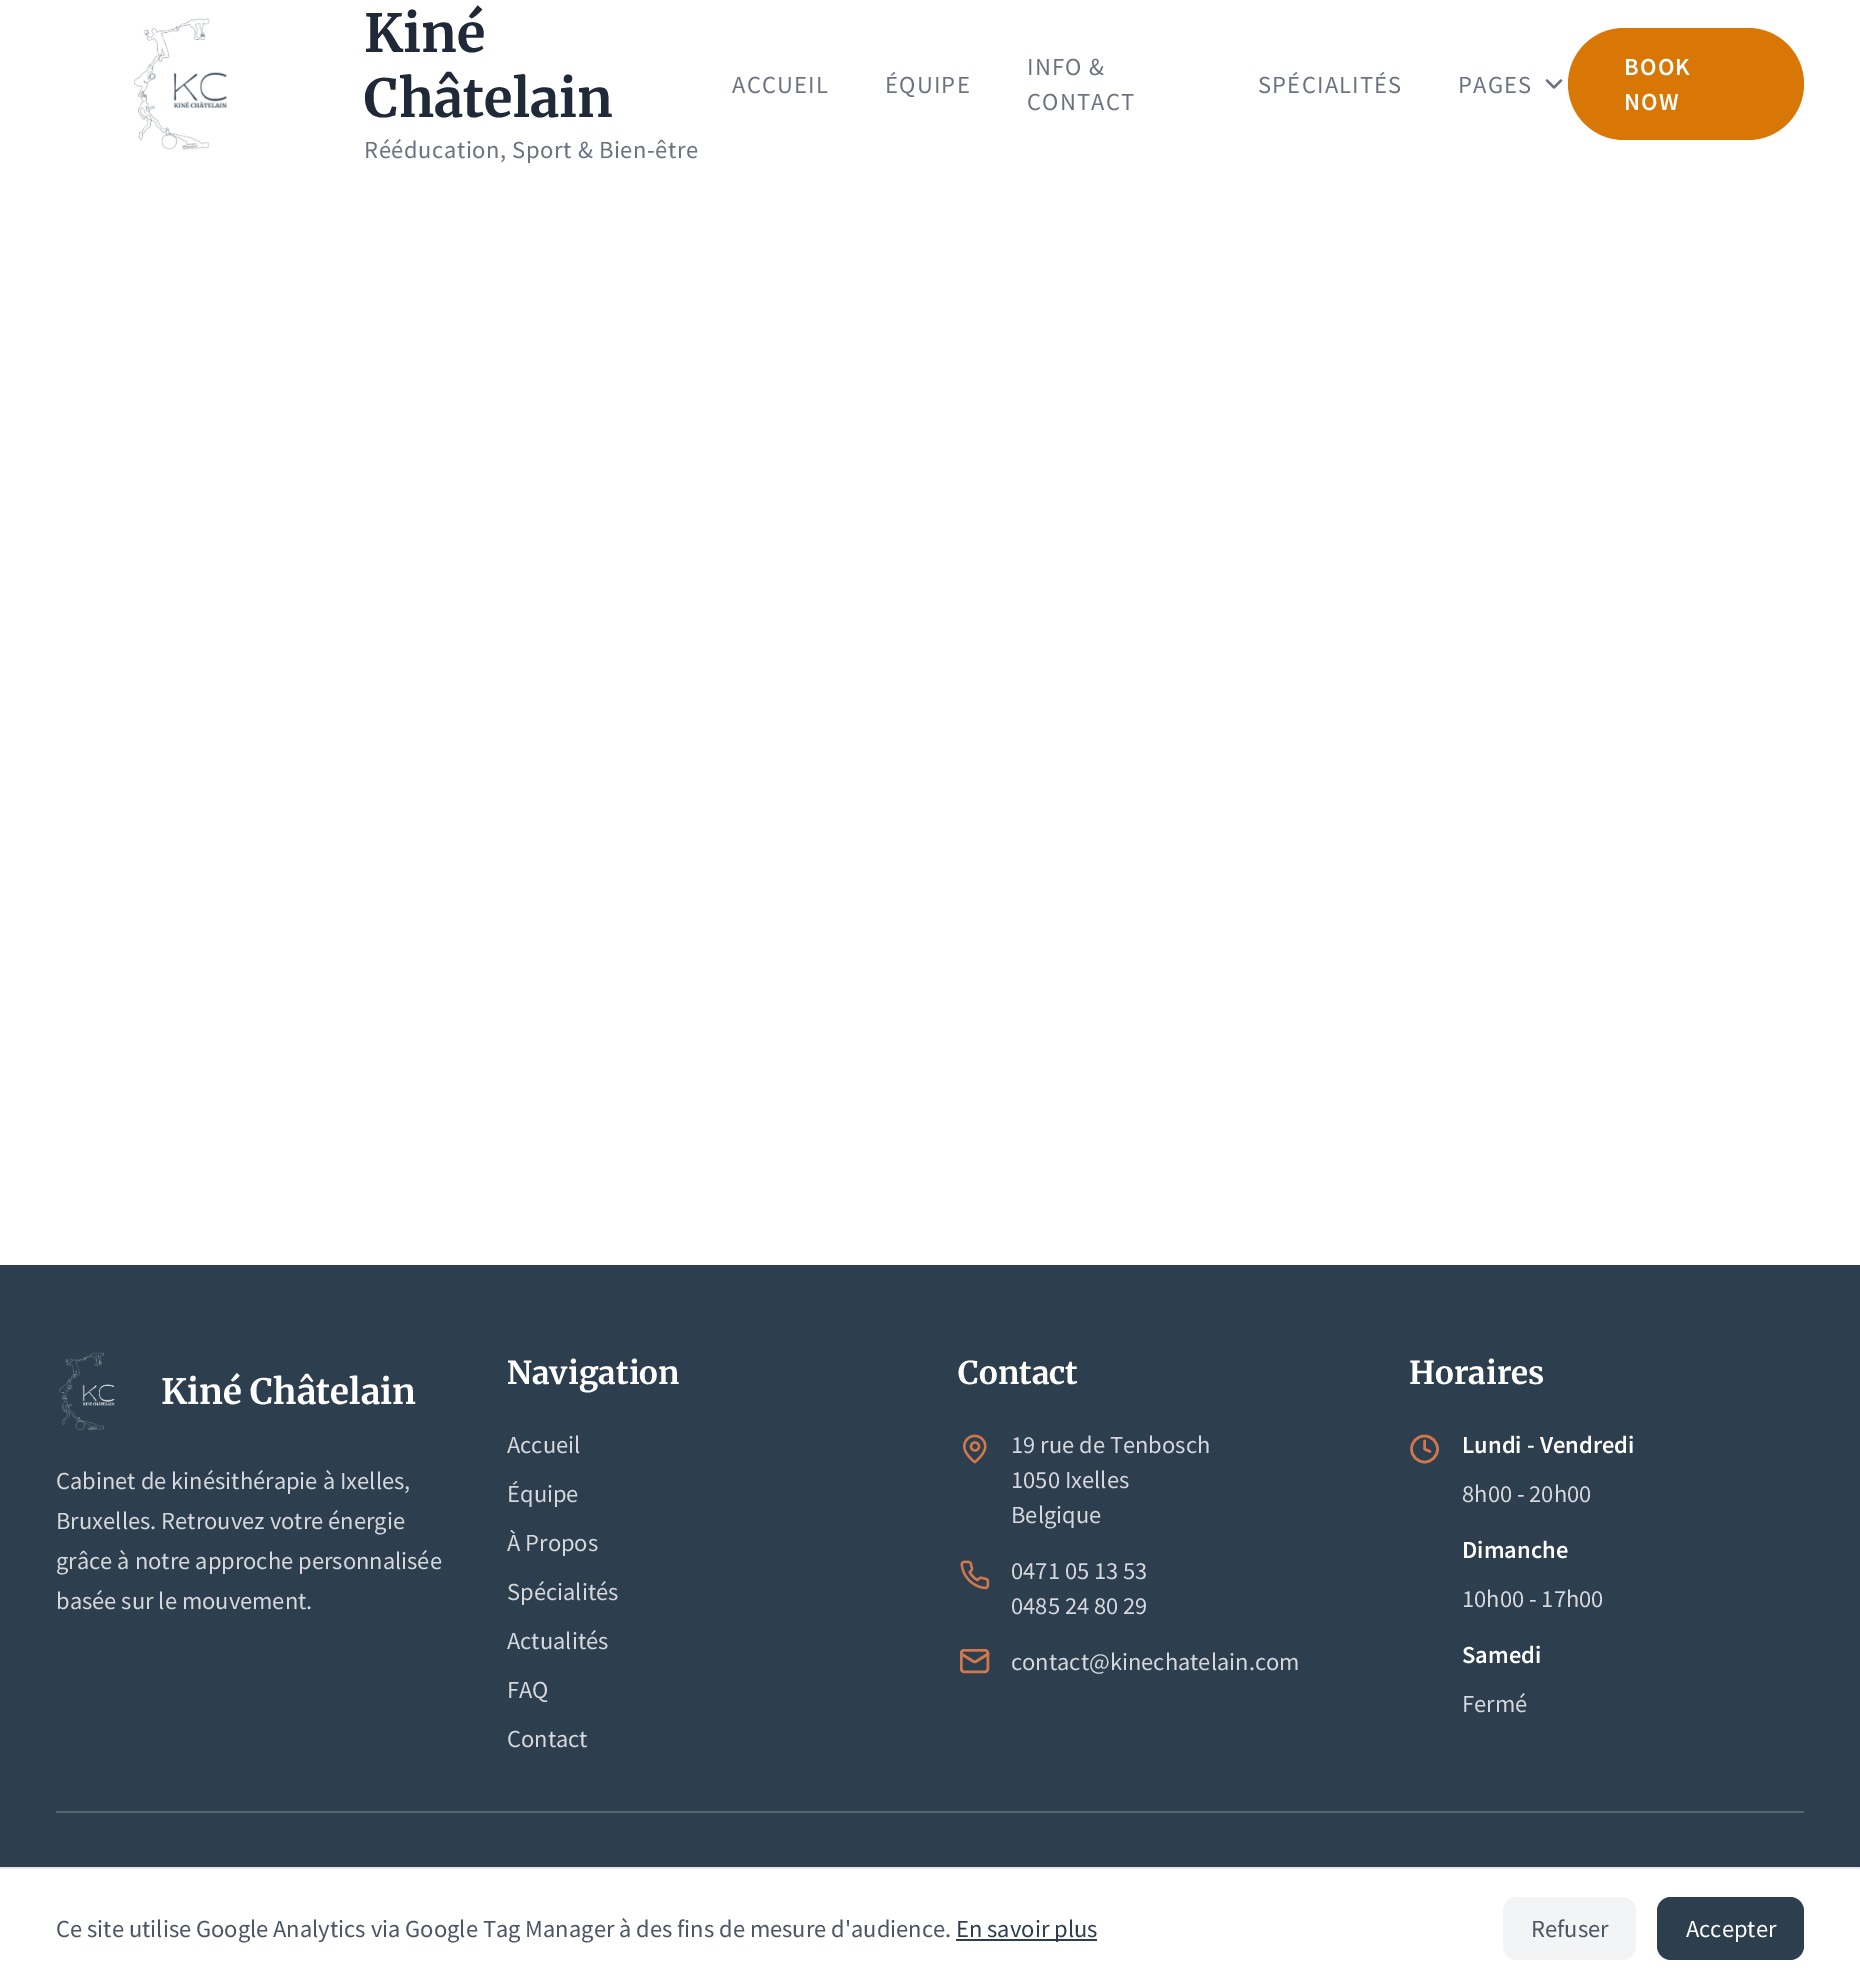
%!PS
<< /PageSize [1860 1988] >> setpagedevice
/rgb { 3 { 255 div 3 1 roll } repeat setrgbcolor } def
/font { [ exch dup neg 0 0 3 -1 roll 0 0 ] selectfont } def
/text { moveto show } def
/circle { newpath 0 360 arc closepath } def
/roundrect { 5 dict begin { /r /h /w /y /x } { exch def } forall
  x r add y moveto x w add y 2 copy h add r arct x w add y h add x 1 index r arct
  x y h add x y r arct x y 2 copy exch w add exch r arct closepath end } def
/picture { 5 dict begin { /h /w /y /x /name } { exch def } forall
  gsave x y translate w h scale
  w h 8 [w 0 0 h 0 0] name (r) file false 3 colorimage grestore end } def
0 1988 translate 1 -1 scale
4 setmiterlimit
255 255 255 rgb
0 0 1860 1988 rectfill
(img_01.rgb) 134 18 93 132 picture
107 114 128 rgb
2.3 setlinewidth
1 setlinecap
1 setlinejoin
1547 80.5 moveto 7 7 rlineto 7 -7 rlineto stroke
217 119 6 rgb
1568 28 236 112 56 roundrect fill
45 62 79 rgb
0 1265 1860 602 rectfill
(img_02.rgb) 59 1352 56 78 picture
(img_03.rgb) 962 1434 25 30 picture
(img_04.rgb) 960 1560 30 30 picture
209 119 76 rgb
2.5 setlinewidth
0 setlinecap
0 setlinejoin
961.25 1650.25 26.5 21.5 2.75 roundrect stroke
2.6 setlinewidth
1 setlinecap
1 setlinejoin
988 1654 moveto -12 7.5 rlineto -0.5 0.5 -2 0.5 -2.5 0 rcurveto -12 -7.5 rlineto stroke
0 setlinecap
0 setlinejoin
1424.5 1449 13 circle stroke
1 setlinecap
1 setlinejoin
1424.5 1441 moveto 0 8 rlineto 5.5 2.5 rlineto stroke
87 101 114 rgb
56 1811 1748 2 rectfill
229 231 235 rgb
0 1867 1860 2 rectfill
45 62 79 rgb
956 1939 141 2 rectfill
243 244 246 rgb
1503 1897 133 63 14 roundrect fill
45 62 79 rgb
1657 1897 147 63 14 roundrect fill
/Merriweather-Bold 52.5 font
31 41 55 rgb
(Kiné) 364 52 text
(Châtelain) 364 117 text
/SourceSansPro-Regular 24.5 font
107 114 128 rgb
364 158 moveto 0.6 0 (Rééducation, Sport & Bien-être) ashow
732 93 moveto 1.25 0 (ACCUEIL) ashow
885 93 moveto 1.25 0 (ÉQUIPE) ashow
1027 75 moveto 1.25 0 (INFO &) ashow
1027 110 moveto 1.25 0 (CONTACT) ashow
1258 93 moveto 1.25 0 (SPÉCIALITÉS) ashow
1458 93 moveto 1.25 0 (PAGES) ashow
/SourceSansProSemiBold-SemiBold 24.5 font
255 255 255 rgb
1624 75 moveto 1.25 0 (BOOK) ashow
1624 110 moveto 1.25 0 (NOW) ashow
/Merriweather-Bold 35 font
(Kiné Châtelain) 161 1404 text
/SourceSansPro-Regular 24.5 font
213 216 220 rgb
(Cabinet de kinésithérapie à Ixelles,) 56 1489 text
(Bruxelles. Retrouvez votre énergie) 56 1529 text
(grâce à notre approche personnalisée) 56 1569 text
(basée sur le mouvement.) 56 1609 text
/Merriweather-Bold 31.5 font
255 255 255 rgb
(Navigation) 507 1384 text
/SourceSansPro-Regular 24.5 font
213 216 220 rgb
(Accueil) 507 1453 text
(Équipe) 507 1502 text
(À Propos) 507 1551 text
(Spécialités) 507 1600 text
(Actualités) 507 1649 text
(FAQ) 507 1698 text
(Contact) 507 1747 text
/Merriweather-Bold 31.5 font
255 255 255 rgb
(Contact) 958 1384 text
/SourceSansPro-Regular 24.5 font
213 216 220 rgb
(19 rue de Tenbosch) 1011 1453 text
(1050 Ixelles) 1011 1488 text
(Belgique) 1011 1523 text
(0471 05 13 53) 1011 1579 text
(0485 24 80 29) 1011 1614 text
(contact@kinechatelain.com) 1011 1670 text
/Merriweather-Bold 31.5 font
255 255 255 rgb
(Horaires) 1409 1384 text
/SourceSansProSemiBold-SemiBold 24.5 font
(Lundi - Vendredi) 1462 1453 text
/SourceSansPro-Regular 24.5 font
213 216 220 rgb
(8h00 - 20h00) 1462 1502 text
/SourceSansProSemiBold-SemiBold 24.5 font
255 255 255 rgb
(Dimanche) 1462 1558 text
/SourceSansPro-Regular 24.5 font
213 216 220 rgb
(10h00 - 17h00) 1462 1607 text
/SourceSansProSemiBold-SemiBold 24.5 font
255 255 255 rgb
(Samedi) 1462 1663 text
/SourceSansPro-Regular 24.5 font
213 216 220 rgb
(Fermé) 1462 1712 text
75 85 99 rgb
(Ce site utilise Google Analytics via Google Tag Manager à des fins de mesure d'audience.) 56 1937 text
45 62 79 rgb
(En savoir plus) 956 1937 text
75 85 99 rgb
(Refuser) 1531 1937 text
255 255 255 rgb
(Accepter) 1686 1937 text
showpage
